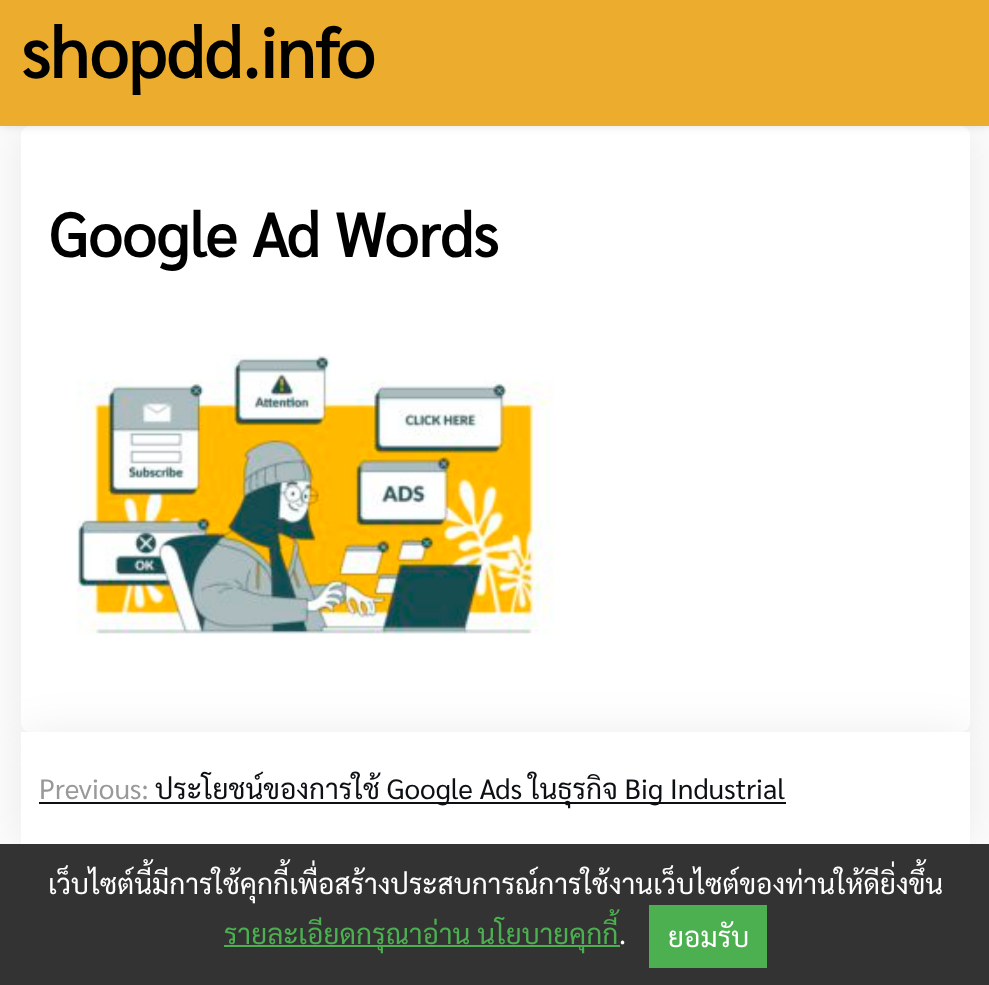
<!DOCTYPE html>
<meta charset="utf-8">
<style>body { margin: 0 } canvas { display: block }</style>
<canvas id="canvas" width="989" height="985"></canvas>
<img id="img1" src="img_01.png" hidden>
<script>
window.onload = function () {
	const canvas = document.getElementById("canvas");
	const ctx = canvas.getContext("2d");
	ctx.miterLimit = 4;
	ctx.fontKerning = "normal";
	function txt(s, x, y) {
		ctx.fillText(s, x, y);
	}
	function fill(x, y, w, h) {
		ctx.fillRect(x, y, w, h);
	}
	function round(x, y, w, h, r) {
		ctx.beginPath();
		ctx.roundRect(x, y, w, h, r);
		ctx.fill();
	}
	function img(id, x, y, w, h) {
		ctx.drawImage(document.getElementById(id), x, y, w, h);
	}

	ctx.fillStyle = "#FCFCFC";
	fill(0, 0, 989, 985);
	ctx.fillStyle = "rgba(0, 0, 0, 0.07)";
	ctx.filter = "blur(22px)";
	ctx.beginPath();
	ctx.roundRect(21, 126, 949, 606, 9);
	ctx.fill();
	ctx.filter = "none";
	ctx.fillStyle = "#FFFFFF";
	round(21, 126, 949, 606, 9);
	ctx.fillStyle = "rgba(0, 0, 0, 0.12)";
	ctx.filter = "blur(4.5px)";
	ctx.beginPath();
	ctx.rect(0, -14, 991, 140);
	ctx.fill();
	ctx.filter = "none";
	ctx.fillStyle = "#ECAC2E";
	fill(0, 0, 989, 126);
	img("img1", 76, 354, 478, 281);
	ctx.fillStyle = "rgba(0, 0, 0, 0.07)";
	ctx.filter = "blur(22px)";
	ctx.beginPath();
	ctx.roundRect(21, 732, 949, 113, 9);
	ctx.fill();
	ctx.filter = "none";
	ctx.fillStyle = "#FFFFFF";
	fill(21, 732, 949, 112);
	ctx.fillStyle = "#0D1013";
	fill(39, 802, 747, 2);
	ctx.fillStyle = "#333333";
	fill(0, 844, 989, 141);
	ctx.fillStyle = "#4CAF50";
	fill(224, 945, 396, 2);
	fill(649, 905, 118, 63);
	ctx.font = "bold 70px Sarabun";
	ctx.fillStyle = "#000000";
	txt("shopdd.info", 21, 78);
	ctx.font = "bold 61.25px Sarabun";
	txt("Google Ad Words", 49, 257);
	ctx.font = "28px Sarabun";
	ctx.fillStyle = "#999999";
	txt("Previous:", 39, 799);
	ctx.fillStyle = "#0D1013";
	txt("ประโยชน์ของการใช้ Google Ads ในธุรกิจ Big Industrial", 155, 799);
	ctx.fillStyle = "#FFFFFF";
	txt("เว็บไซต์นี้มีการใช้คุกกี้เพื่อสร้างประสบการณ์การใช้งานเว็บไซต์ของท่านให้ดียิ่งขึ้น", 48, 894);
	ctx.fillStyle = "#4CAF50";
	txt("รายละเอียดกรุณาอ่าน นโยบายคุกกี้", 224, 944);
	ctx.fillStyle = "#FFFFFF";
	txt(".", 619, 944);
	txt("ยอมรับ", 668, 947);
};
</script>
